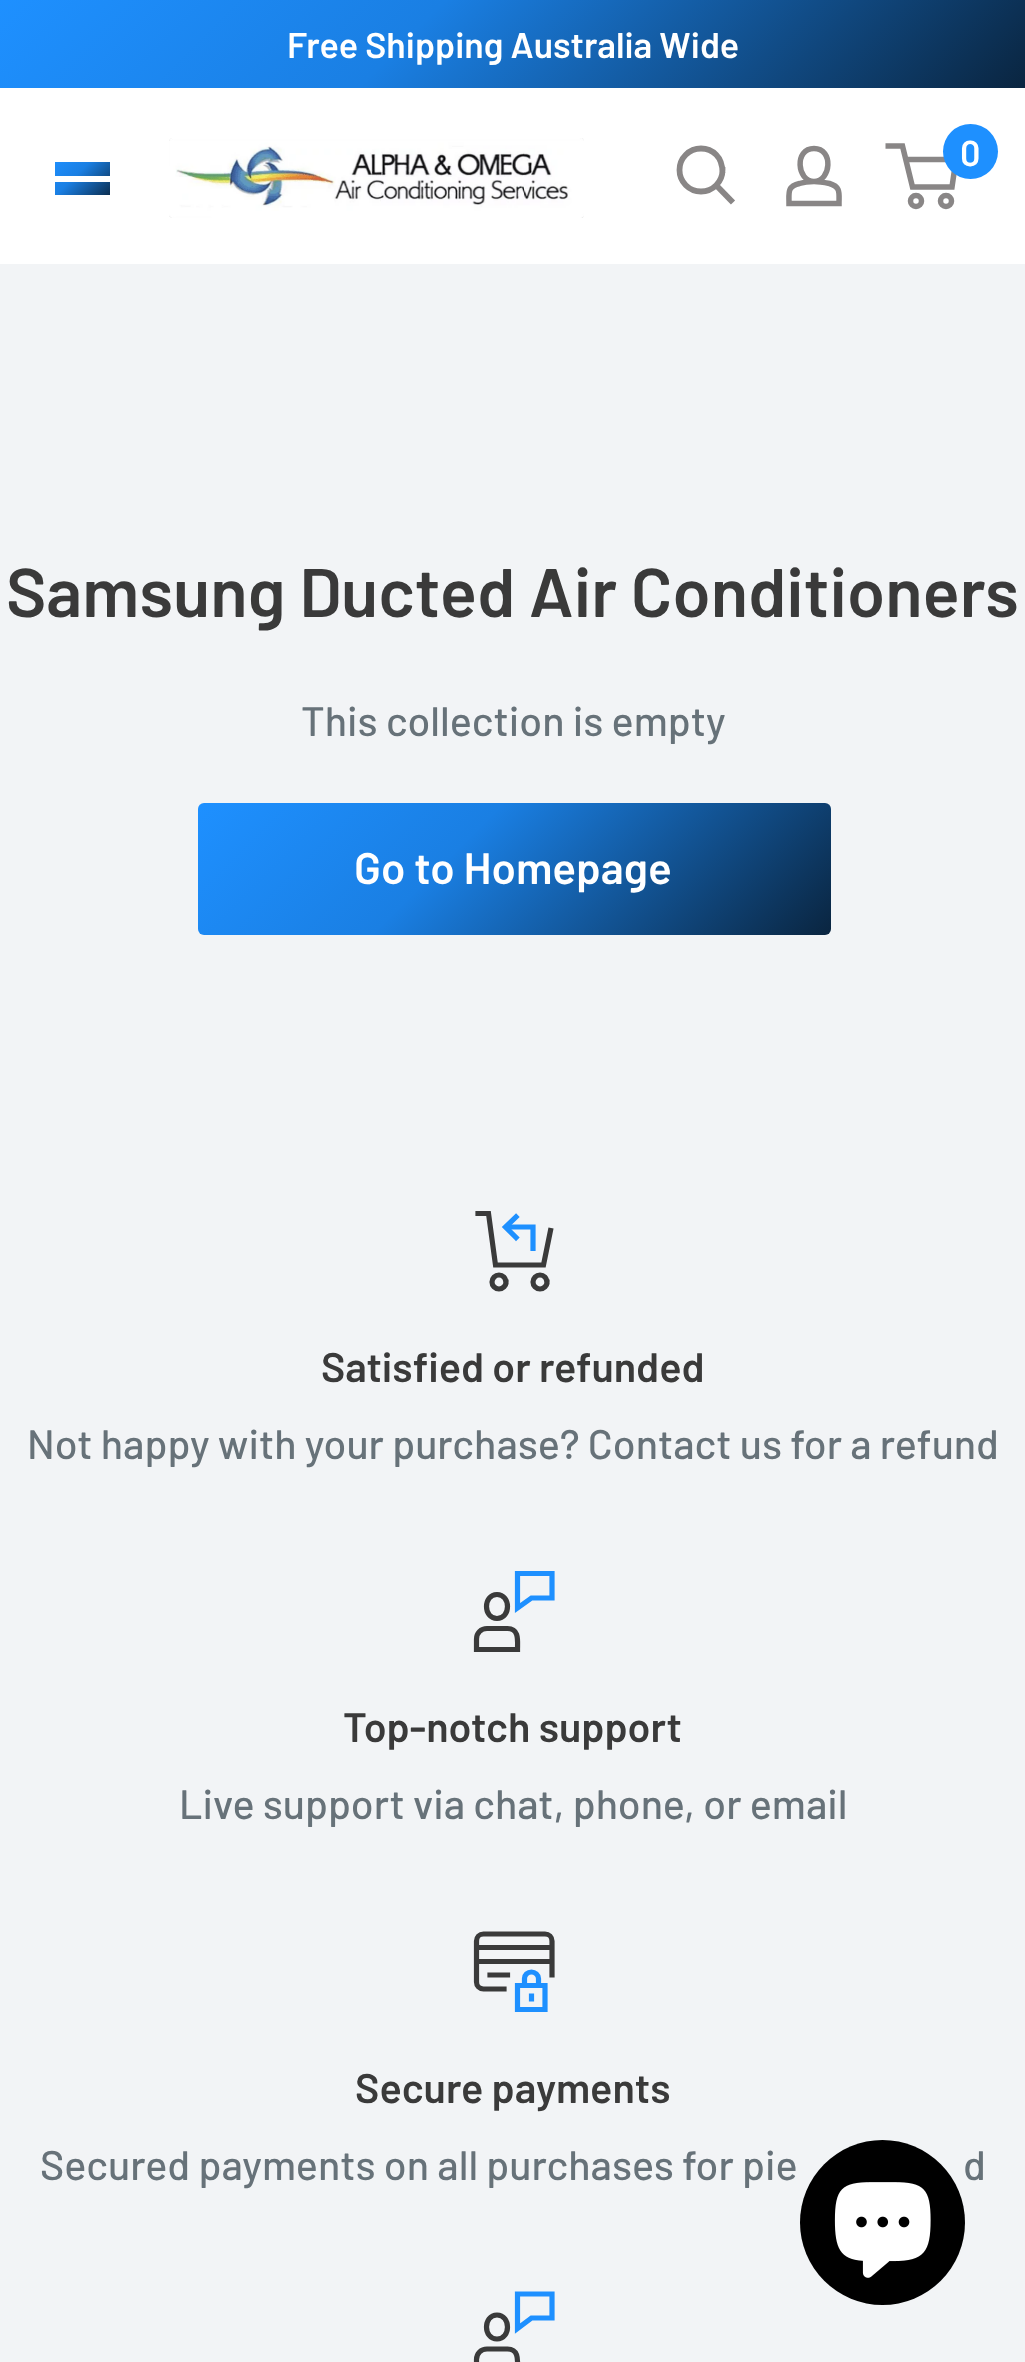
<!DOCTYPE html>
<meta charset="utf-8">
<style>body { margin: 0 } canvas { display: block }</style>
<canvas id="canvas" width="1025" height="2362"></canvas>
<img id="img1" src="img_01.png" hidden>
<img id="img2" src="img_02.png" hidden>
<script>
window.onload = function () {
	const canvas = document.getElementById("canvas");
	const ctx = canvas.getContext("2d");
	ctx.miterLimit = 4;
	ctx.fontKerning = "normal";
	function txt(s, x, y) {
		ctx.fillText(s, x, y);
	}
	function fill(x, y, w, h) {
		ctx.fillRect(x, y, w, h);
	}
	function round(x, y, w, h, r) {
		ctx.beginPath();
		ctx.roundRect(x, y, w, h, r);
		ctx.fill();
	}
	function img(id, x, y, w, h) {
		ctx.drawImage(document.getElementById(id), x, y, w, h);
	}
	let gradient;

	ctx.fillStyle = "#F2F4F6";
	fill(0, 0, 1025, 2362);
	gradient = ctx.createLinearGradient(234, -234, 791, 322);
	gradient.addColorStop(0, "#1E90FF");
	gradient.addColorStop(0.4, "#1A7FE3");
	gradient.addColorStop(1, "#0A2540");
	ctx.fillStyle = gradient;
	fill(0, 0, 1025, 88);
	ctx.fillStyle = "#FFFFFF";
	fill(0, 88, 1025, 176);
	img("img1", 169, 138, 415, 80);
	ctx.beginPath();
	ctx.moveTo(731, 200.5);
	ctx.lineTo(717, 186);
	ctx.strokeStyle = "#898686";
	ctx.lineWidth = 5.8;
	ctx.lineCap = "square";
	ctx.stroke();
	ctx.beginPath();
	ctx.arc(701, 170, 21.5, 0, Math.PI * 2);
	ctx.stroke();
	ctx.beginPath();
	ctx.moveTo(814, 181.5);
	ctx.bezierCurveTo(819, 181.5, 824.5, 182.5, 829.5, 183.5);
	ctx.bezierCurveTo(841, 187, 839, 193, 839, 203.5);
	ctx.lineTo(789, 203.5);
	ctx.bezierCurveTo(789, 192.5, 787, 186.5, 799.5, 183.5);
	ctx.bezierCurveTo(804, 182, 809, 181.5, 814, 181.5);
	ctx.closePath();
	ctx.moveTo(814, 181.5);
	ctx.bezierCurveTo(797, 181.5, 794, 148.5, 814, 148.5);
	ctx.bezierCurveTo(834, 148.5, 831, 181.5, 814, 181.5);
	ctx.closePath();
	ctx.lineWidth = 5.5;
	ctx.lineCap = "butt";
	ctx.stroke();
	ctx.beginPath();
	ctx.arc(916, 201, 5.5, 0, Math.PI * 2);
	ctx.stroke();
	ctx.beginPath();
	ctx.arc(946, 201, 5.5, 0, Math.PI * 2);
	ctx.stroke();
	ctx.beginPath();
	ctx.moveTo(905.5, 159.5);
	ctx.lineTo(956, 159.5);
	ctx.lineTo(952, 187);
	ctx.lineTo(912.5, 187);
	ctx.lineTo(902.5, 146);
	ctx.lineTo(885.5, 146);
	ctx.stroke();
	ctx.fillStyle = "#1E90FF";
	ctx.beginPath();
	ctx.arc(970.5, 151.5, 27.5, 0, Math.PI * 2);
	ctx.fill();
	gradient = ctx.createLinearGradient(58, 154, 107, 204);
	gradient.addColorStop(0, "#1E90FF");
	gradient.addColorStop(0.4, "#1A7FE3");
	gradient.addColorStop(1, "#0A2540");
	ctx.fillStyle = gradient;
	fill(55, 162, 55, 33);
	ctx.fillStyle = "#FFFFFF";
	ctx.beginPath();
	ctx.moveTo(55, 195);
	ctx.lineTo(110, 195);
	ctx.lineTo(110, 201);
	ctx.lineTo(55, 201);
	ctx.closePath();
	ctx.moveTo(55, 157);
	ctx.lineTo(110, 157);
	ctx.lineTo(110, 162);
	ctx.lineTo(55, 162);
	ctx.closePath();
	ctx.moveTo(55, 176);
	ctx.lineTo(110, 176);
	ctx.lineTo(110, 182);
	ctx.lineTo(55, 182);
	ctx.closePath();
	ctx.fill("evenodd");
	gradient = ctx.createLinearGradient(323, 678, 705, 1060);
	gradient.addColorStop(0, "#1E90FF");
	gradient.addColorStop(0.4, "#1A7FE3");
	gradient.addColorStop(1, "#0A2540");
	ctx.fillStyle = gradient;
	round(198, 803, 633, 132, 6);
	ctx.beginPath();
	ctx.moveTo(505.5, 1227);
	ctx.lineTo(533, 1227);
	ctx.lineTo(533, 1251);
	ctx.strokeStyle = "#1E90FF";
	ctx.lineWidth = 5.2;
	ctx.stroke();
	ctx.beginPath();
	ctx.moveTo(516, 1237.5);
	ctx.lineTo(505.5, 1227);
	ctx.lineTo(516, 1217);
	ctx.lineCap = "square";
	ctx.stroke();
	ctx.beginPath();
	ctx.moveTo(550.5, 1230.5);
	ctx.lineTo(543.5, 1265);
	ctx.lineTo(495.5, 1265);
	ctx.lineTo(488.5, 1213.5);
	ctx.lineTo(478, 1213.5);
	ctx.strokeStyle = "#3A3A3A";
	ctx.stroke();
	ctx.beginPath();
	ctx.arc(499, 1282, 7, 0, Math.PI * 2);
	ctx.stroke();
	ctx.beginPath();
	ctx.arc(540, 1282, 7, 0, Math.PI * 2);
	ctx.stroke();
	ctx.beginPath();
	ctx.moveTo(507.5, 1628.5);
	ctx.lineTo(487, 1628.5);
	ctx.bezierCurveTo(481, 1628.5, 476.5, 1633, 476.5, 1639);
	ctx.lineTo(476.5, 1649.5);
	ctx.lineTo(517.5, 1649.5);
	ctx.bezierCurveTo(517.5, 1641, 519.5, 1628.5, 507.5, 1628.5);
	ctx.closePath();
	ctx.moveTo(497, 1618.5);
	ctx.bezierCurveTo(483, 1618.5, 483, 1594.5, 497, 1594.5);
	ctx.bezierCurveTo(511, 1594.5, 511, 1618.5, 497, 1618.5);
	ctx.closePath();
	ctx.stroke();
	ctx.beginPath();
	ctx.moveTo(517.5, 1573.5);
	ctx.lineTo(517.5, 1608);
	ctx.lineTo(531.5, 1598);
	ctx.lineTo(552, 1598);
	ctx.lineTo(552, 1573.5);
	ctx.closePath();
	ctx.strokeStyle = "#1E90FF";
	ctx.stroke();
	ctx.beginPath();
	ctx.moveTo(476.5, 1947.5);
	ctx.lineTo(552, 1947.5);
	ctx.moveTo(476.5, 1961.5);
	ctx.lineTo(552, 1961.5);
	ctx.moveTo(504, 1989);
	ctx.lineTo(483.5, 1989);
	ctx.bezierCurveTo(479.5, 1989, 476.5, 1986, 476.5, 1982);
	ctx.lineTo(476.5, 1941);
	ctx.bezierCurveTo(476.5, 1937, 479.5, 1934, 483.5, 1934);
	ctx.lineTo(545, 1934);
	ctx.bezierCurveTo(549, 1934, 552, 1937, 552, 1941);
	ctx.lineTo(552, 1975);
	ctx.moveTo(490, 1975);
	ctx.lineTo(507.5, 1975);
	ctx.strokeStyle = "#3A3A3A";
	ctx.stroke();
	ctx.beginPath();
	ctx.moveTo(517.5, 1985.5);
	ctx.lineTo(545, 1985.5);
	ctx.lineTo(545, 2009.5);
	ctx.lineTo(517.5, 2009.5);
	ctx.closePath();
	ctx.moveTo(524.5, 1985.5);
	ctx.lineTo(524.5, 1978.5);
	ctx.bezierCurveTo(524.5, 1975, 527.5, 1972, 531.5, 1972);
	ctx.bezierCurveTo(535, 1972, 538.5, 1975, 538.5, 1978.5);
	ctx.lineTo(538.5, 1985.5);
	ctx.moveTo(531.5, 1996);
	ctx.lineTo(531.5, 1999);
	ctx.strokeStyle = "#1E90FF";
	ctx.stroke();
	ctx.beginPath();
	ctx.moveTo(507.5, 2349);
	ctx.lineTo(487, 2349);
	ctx.bezierCurveTo(481, 2349, 476.5, 2353.5, 476.5, 2359.5);
	ctx.lineTo(476.5, 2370);
	ctx.lineTo(517.5, 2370);
	ctx.bezierCurveTo(517.5, 2361.5, 519.5, 2349, 507.5, 2349);
	ctx.closePath();
	ctx.moveTo(497, 2339);
	ctx.bezierCurveTo(483, 2339, 483, 2315, 497, 2315);
	ctx.bezierCurveTo(511, 2315, 511, 2339, 497, 2339);
	ctx.closePath();
	ctx.strokeStyle = "#3A3A3A";
	ctx.stroke();
	ctx.beginPath();
	ctx.moveTo(517.5, 2294);
	ctx.lineTo(517.5, 2328.5);
	ctx.lineTo(531.5, 2318);
	ctx.lineTo(552, 2318);
	ctx.lineTo(552, 2294);
	ctx.closePath();
	ctx.strokeStyle = "#1E90FF";
	ctx.stroke();
	ctx.font = "600 35.75px Barlow";
	ctx.fillStyle = "#FFFFFF";
	txt("Free Shipping Australia Wide", 287, 58);
	ctx.font = "600 36px Barlow";
	txt("0", 960, 166);
	ctx.font = "600 68.75px Barlow";
	ctx.fillStyle = "#3A3A3A";
	txt("Samsung Ducted Air Conditioners", 6, 617);
	ctx.font = "500 41.25px Barlow";
	ctx.fillStyle = "#677279";
	txt("This collection is empty", 301, 736);
	ctx.font = "600 44px Barlow";
	ctx.fillStyle = "#FFFFFF";
	txt("Go to Homepage", 354, 884);
	ctx.font = "600 41.25px Barlow";
	ctx.fillStyle = "#3A3A3A";
	txt("Satisfied or refunded", 321, 1382);
	ctx.font = "500 41.25px Barlow";
	ctx.fillStyle = "#677279";
	txt("Not happy with your purchase? Contact us for a refund", 27, 1459);
	ctx.font = "600 41.25px Barlow";
	ctx.fillStyle = "#3A3A3A";
	txt("Top-notch support", 343, 1742);
	ctx.font = "500 41.25px Barlow";
	ctx.fillStyle = "#677279";
	txt("Live support via chat, phone, or email", 179, 1819);
	ctx.font = "600 41.25px Barlow";
	ctx.fillStyle = "#3A3A3A";
	txt("Secure payments", 355, 2103);
	ctx.font = "500 41.25px Barlow";
	ctx.fillStyle = "#677279";
	txt("Secured payments on all purchases for pie", 40, 2180);
	txt("d", 963, 2180);
	ctx.fillStyle = "#000000";
	ctx.beginPath();
	ctx.arc(882.5, 2222.5, 82.5, 0, Math.PI * 2);
	ctx.fill();
	img("img2", 834, 2182, 97, 96);
};
</script>
